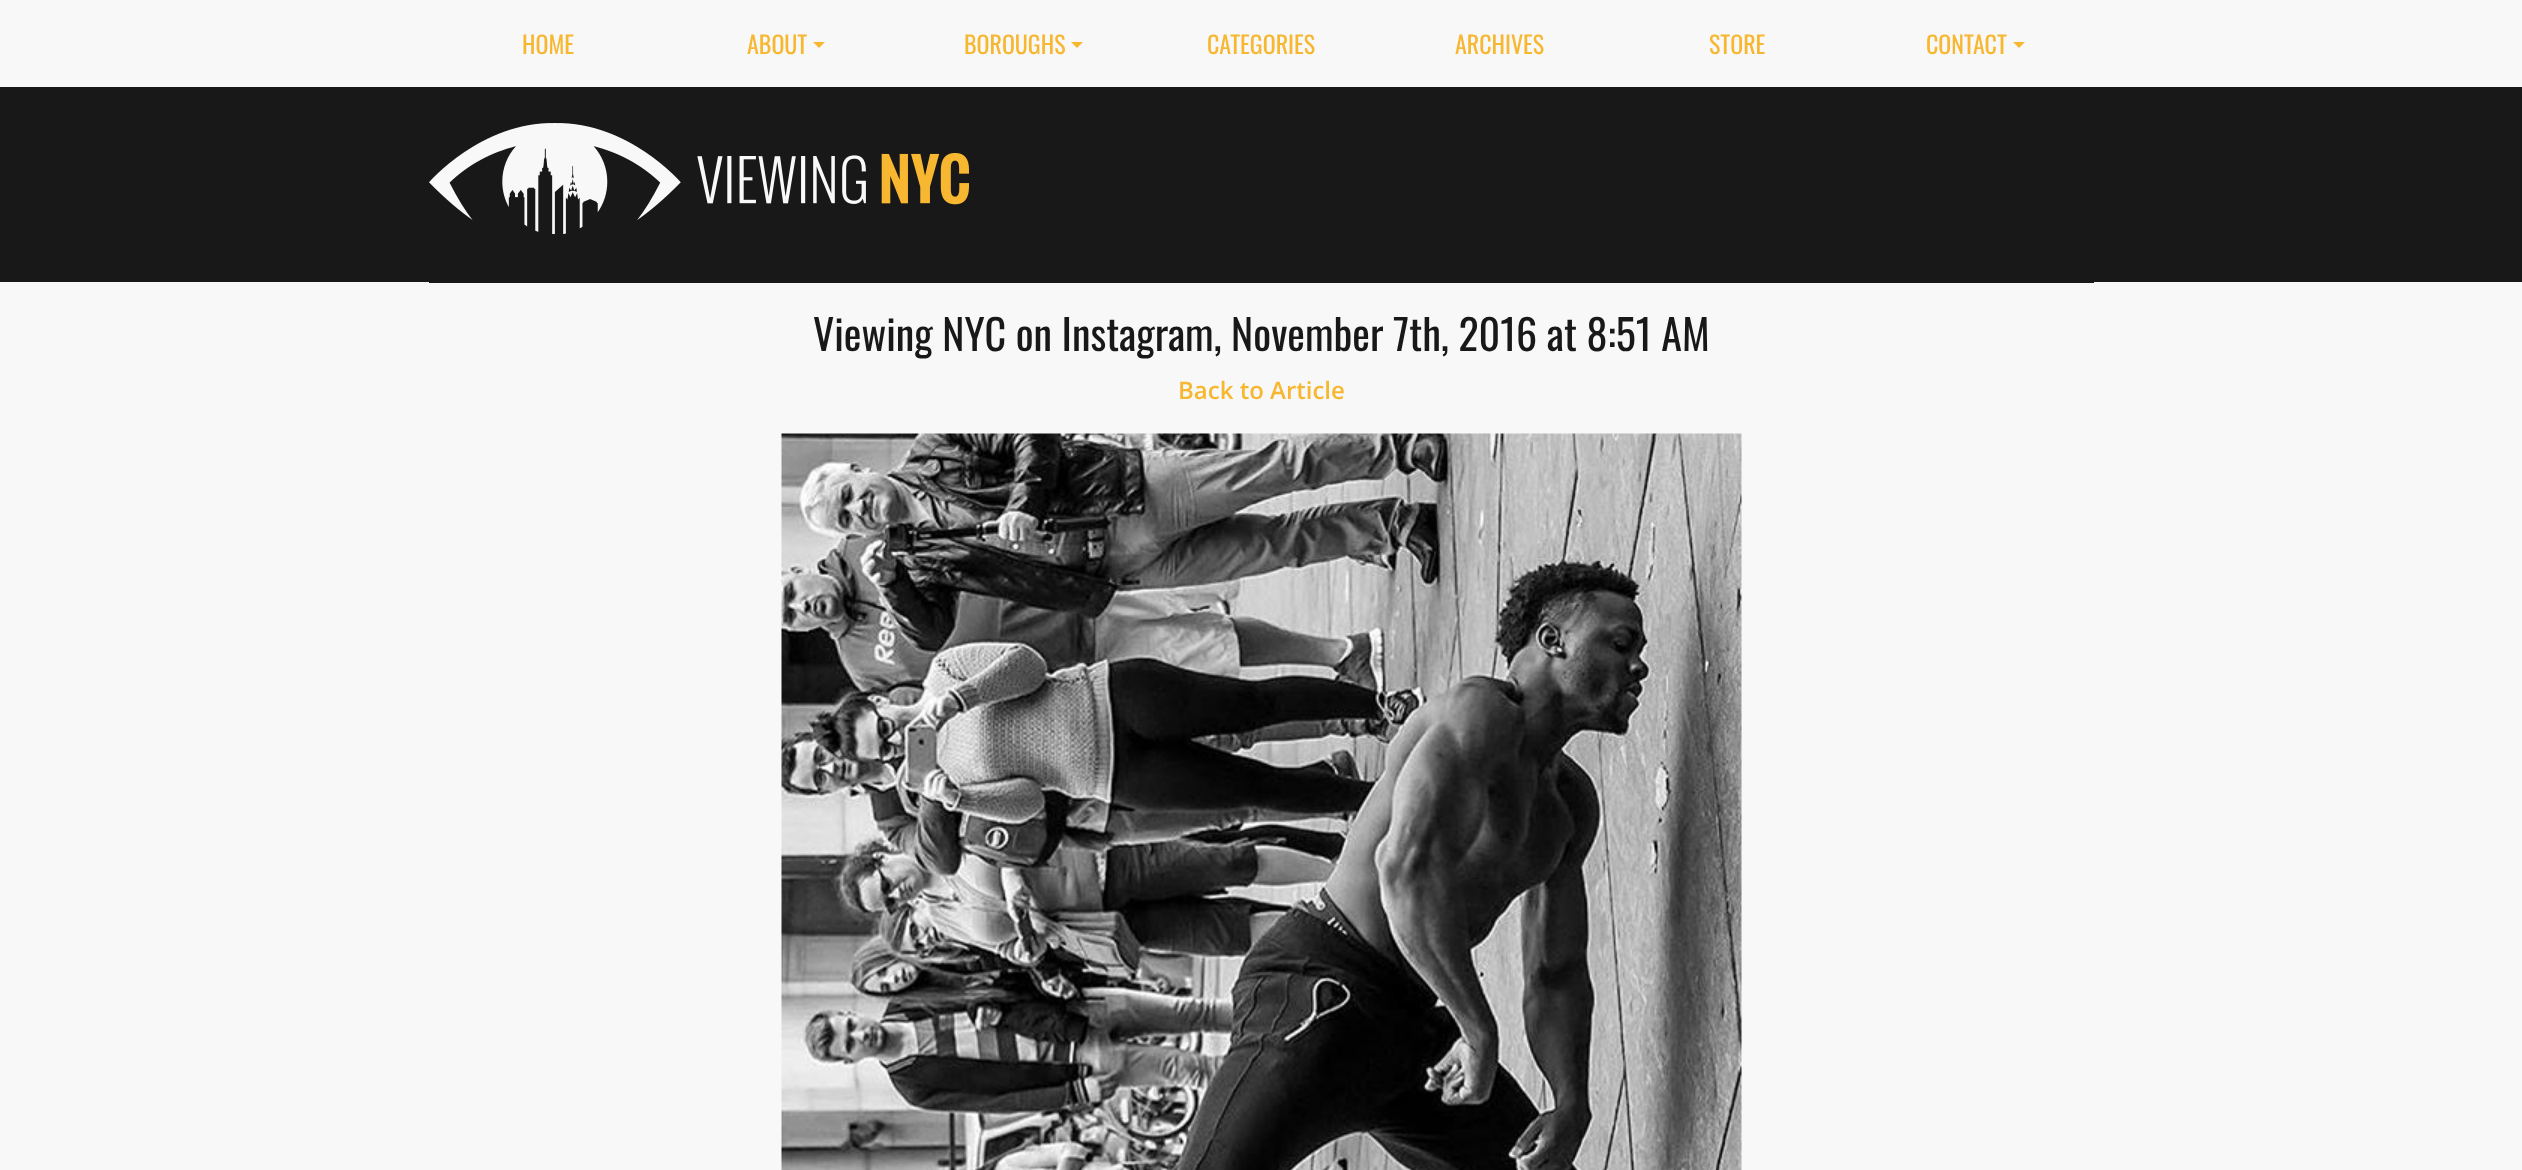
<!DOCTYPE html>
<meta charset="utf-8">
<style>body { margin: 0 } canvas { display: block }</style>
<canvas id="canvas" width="2522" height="1170"></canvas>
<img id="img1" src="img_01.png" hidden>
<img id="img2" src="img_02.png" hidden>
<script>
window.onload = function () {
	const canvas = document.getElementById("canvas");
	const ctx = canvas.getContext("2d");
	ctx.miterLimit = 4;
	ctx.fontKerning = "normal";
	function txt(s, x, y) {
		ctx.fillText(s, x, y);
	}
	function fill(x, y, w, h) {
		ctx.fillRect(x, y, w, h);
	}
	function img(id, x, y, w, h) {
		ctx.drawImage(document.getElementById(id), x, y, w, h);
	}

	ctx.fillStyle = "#F8F8F8";
	fill(0, 0, 2522, 1170);
	ctx.fillStyle = "#F7B731";
	ctx.beginPath();
	ctx.moveTo(813, 42);
	ctx.lineTo(825, 42);
	ctx.lineTo(819, 48);
	ctx.closePath();
	ctx.fill();
	ctx.beginPath();
	ctx.moveTo(1071, 42);
	ctx.lineTo(1083, 42);
	ctx.lineTo(1077, 48);
	ctx.closePath();
	ctx.fill();
	ctx.beginPath();
	ctx.moveTo(2013, 42);
	ctx.lineTo(2025, 42);
	ctx.lineTo(2019, 48);
	ctx.closePath();
	ctx.fill();
	ctx.fillStyle = "#181818";
	fill(0, 87, 2522, 195);
	fill(429, 282, 1665, 1);
	img("img1", 429, 123, 540, 111);
	img("img2", 781, 433, 961, 737);
	ctx.font = "24px Oswald";
	ctx.fillStyle = "#F7B731";
	txt("HOME", 522, 54);
	txt("ABOUT", 747, 54);
	txt("BOROUGHS", 964, 54);
	txt("CATEGORIES", 1207, 54);
	txt("ARCHIVES", 1455, 54);
	txt("STORE", 1709, 54);
	txt("CONTACT", 1926, 54);
	ctx.font = "42px Oswald";
	ctx.fillStyle = "#181818";
	txt("Viewing NYC on Instagram, November 7th, 2016 at 8:51 AM", 813, 351);
	ctx.font = "600 24px Open Sans";
	ctx.fillStyle = "#F7B731";
	txt("Back to Article", 1178, 399);
};
</script>
